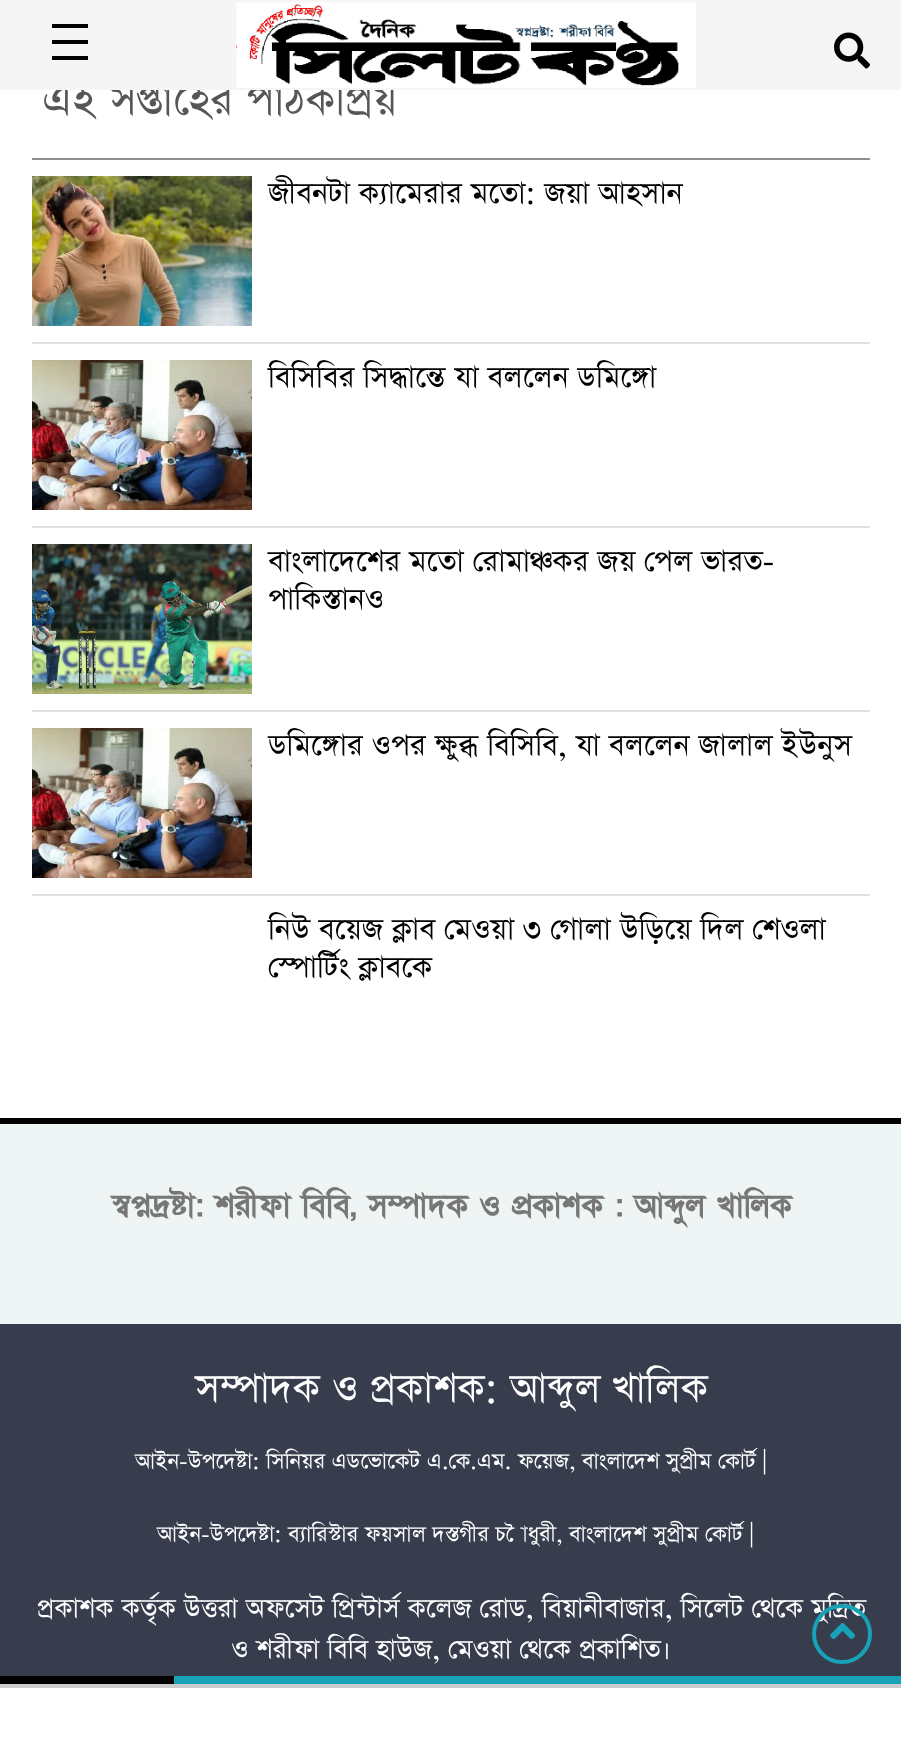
<!DOCTYPE html>
<meta charset="utf-8">
<style>body { margin: 0 } canvas { display: block }</style>
<canvas id="canvas" width="901" height="1743"></canvas>
<img id="img1" src="img_04.png" hidden>
<img id="img2" src="img_05.png" hidden>
<img id="img3" src="img_06.png" hidden>
<img id="img4" src="img_02.png" hidden>
<img id="img5" src="img_01.png" hidden>
<img id="img6" src="img_03.png" hidden>
<script>
window.onload = function () {
	const canvas = document.getElementById("canvas");
	const ctx = canvas.getContext("2d");
	ctx.miterLimit = 4;
	ctx.fontKerning = "normal";
	function txt(s, x, y) {
		ctx.fillText(s, x, y);
	}
	function fill(x, y, w, h) {
		ctx.fillRect(x, y, w, h);
	}
	function img(id, x, y, w, h) {
		ctx.drawImage(document.getElementById(id), x, y, w, h);
	}

	ctx.fillStyle = "#FFFFFF";
	fill(0, 0, 901, 1743);
	ctx.fillStyle = "#8F8F8F";
	fill(32, 158, 838, 2);
	ctx.fillStyle = "#E0E0E0";
	fill(32, 342, 838, 2);
	img("img1", 32, 176, 220, 150);
	fill(32, 526, 838, 2);
	img("img2", 32, 360, 220, 150);
	fill(32, 710, 838, 2);
	img("img3", 32, 544, 220, 150);
	fill(32, 894, 838, 2);
	img("img2", 32, 728, 220, 150);
	ctx.fillStyle = "#EFF5F4";
	fill(0, 1124, 901, 200);
	ctx.fillStyle = "#000000";
	fill(0, 1118, 901, 6);
	ctx.fillStyle = "#373D4D";
	fill(0, 1324, 901, 352);
	ctx.fillStyle = "#17A2B8";
	fill(174, 1676, 727, 8);
	ctx.fillStyle = "#000000";
	fill(0, 1676, 174, 8);
	ctx.fillStyle = "#CCCCCC";
	fill(0, 1684, 901, 4);
	ctx.font = "52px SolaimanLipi";
	ctx.fillStyle = "#565656";
	txt("এই সপ্তাহের পাঠকপ্রিয়", 42, 116);
	ctx.fillStyle = "#F5F5F5";
	fill(0, 0, 901, 90);
	img("img4", 834, 32, 36, 37);
	img("img5", 236, 2, 460, 86);
	ctx.fillStyle = "#000000";
	fill(52, 56, 36, 4);
	fill(52, 40, 36, 4);
	fill(52, 24, 36, 4);
	ctx.font = "35.6px SolaimanLipi";
	txt("জীবনটা ক্যামেরার মতো: জয়া আহসান", 268, 204);
	txt("বিসিবির সিদ্ধান্তে যা বললেন ডমিঙ্গো", 268, 388);
	txt("বাংলাদেশের মতো রোমাঞ্চকর জয় পেল ভারত-", 268, 572);
	txt("পাকিস্তানও", 268, 610);
	txt("ডমিঙ্গোর ওপর ক্ষুব্ধ বিসিবি, যা বললেন জালাল ইউনুস", 268, 756);
	txt("নিউ বয়েজ ক্লাব মেওয়া ৩ গোলা উড়িয়ে দিল শেওলা", 268, 940);
	txt("স্পোর্টিং ক্লাবকে", 268, 978);
	ctx.font = "bold 31.7px SolaimanLipi";
	ctx.fillStyle = "#777777";
	txt("স্বপ্নদ্রষ্টা: শরীফা বিবি, সম্পাদক ও প্রকাশক : আব্দুল খালিক", 112, 1216);
	ctx.font = "48px SolaimanLipi";
	ctx.fillStyle = "#FFFFFF";
	txt("সম্পাদক ও প্রকাশক: আব্দুল খালিক", 195, 1403);
	ctx.font = "26px SolaimanLipi";
	txt("আইন-উপদেষ্টা: সিনিয়র এডভোকেট এ.কে.এম. ফয়েজ, বাংলাদেশ সুপ্রীম কোর্ট |", 135, 1469);
	txt("আইন-উপদেষ্টা: ব্যারিস্টার ফয়সাল দস্তগীর চৌধুরী, বাংলাদেশ সুপ্রীম কোর্ট |", 157, 1542);
	ctx.font = "32px SolaimanLipi";
	txt("প্রকাশক কর্তৃক উত্তরা অফসেট প্রিন্টার্স কলেজ রোড, বিয়ানীবাজার, সিলেট থেকে মুদ্রিত", 37, 1618);
	ctx.beginPath();
	ctx.arc(842, 1634, 28, 0, Math.PI * 2);
	ctx.strokeStyle = "#17A2B8";
	ctx.lineWidth = 4;
	ctx.stroke();
	img("img6", 830, 1623, 25, 16);
	txt("ও শরীফা বিবি হাউজ, মেওয়া থেকে প্রকাশিত।", 231, 1659);
};
</script>
